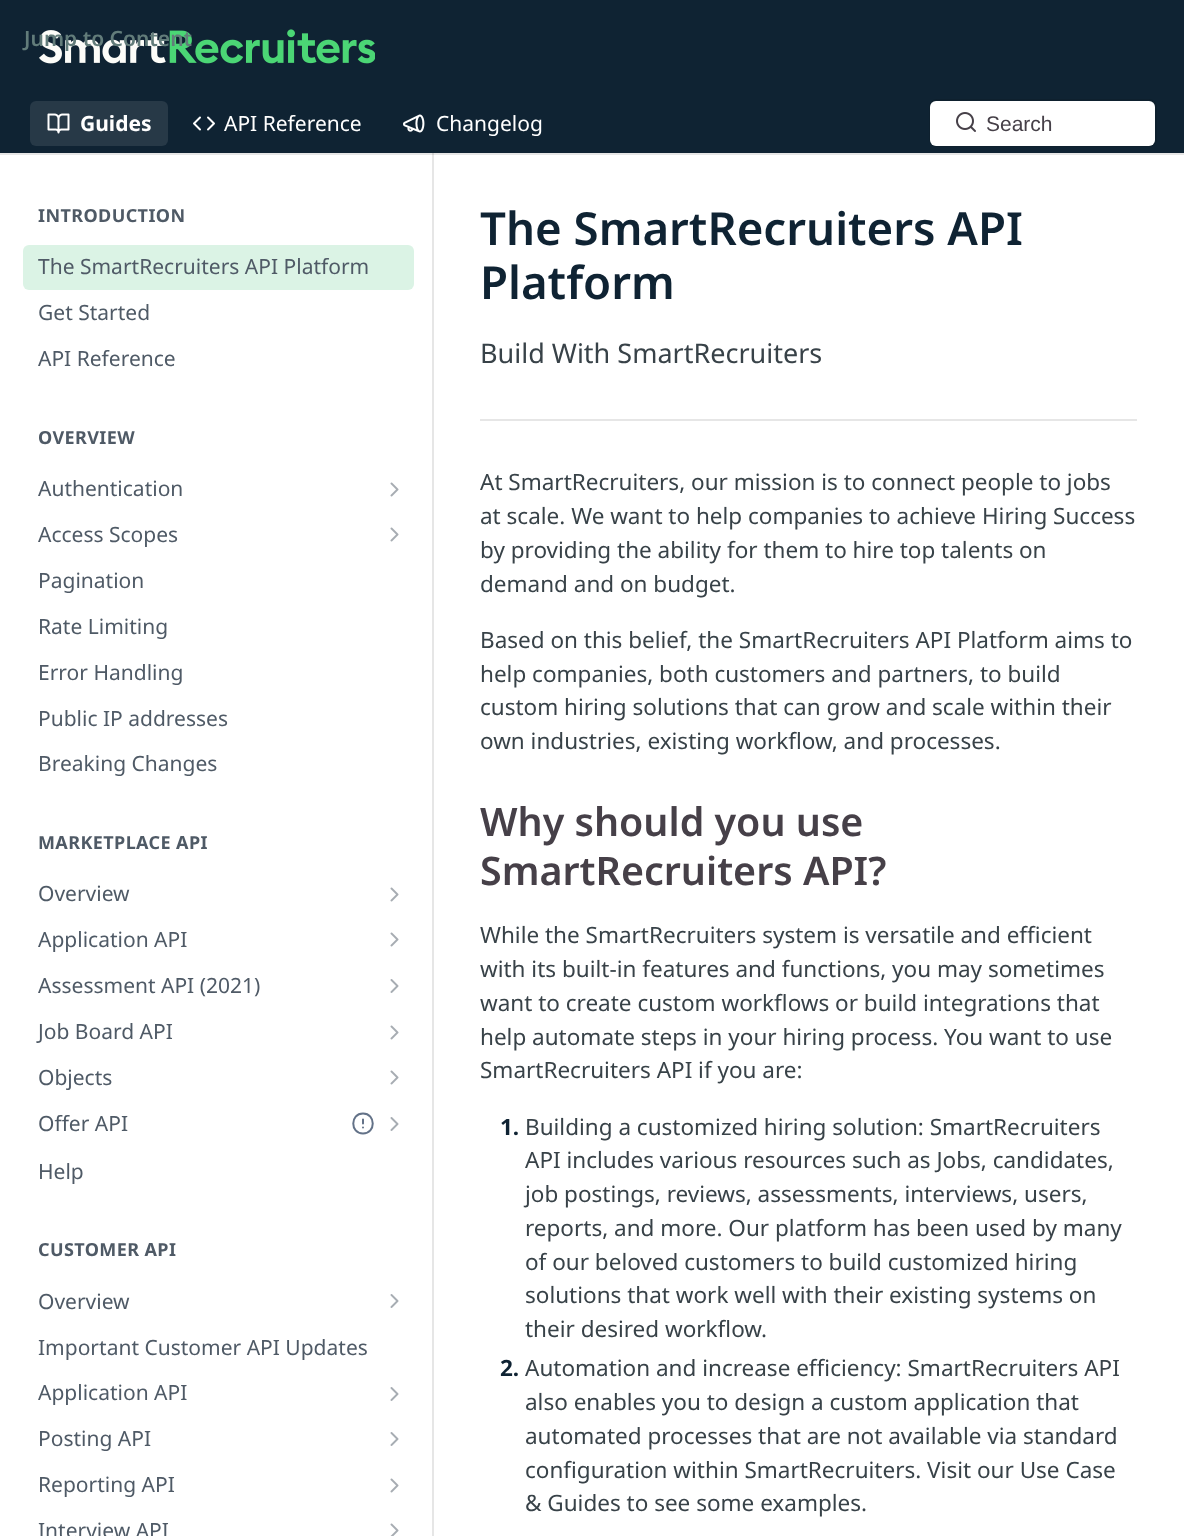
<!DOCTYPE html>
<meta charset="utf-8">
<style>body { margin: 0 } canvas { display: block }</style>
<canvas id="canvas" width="1184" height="1536"></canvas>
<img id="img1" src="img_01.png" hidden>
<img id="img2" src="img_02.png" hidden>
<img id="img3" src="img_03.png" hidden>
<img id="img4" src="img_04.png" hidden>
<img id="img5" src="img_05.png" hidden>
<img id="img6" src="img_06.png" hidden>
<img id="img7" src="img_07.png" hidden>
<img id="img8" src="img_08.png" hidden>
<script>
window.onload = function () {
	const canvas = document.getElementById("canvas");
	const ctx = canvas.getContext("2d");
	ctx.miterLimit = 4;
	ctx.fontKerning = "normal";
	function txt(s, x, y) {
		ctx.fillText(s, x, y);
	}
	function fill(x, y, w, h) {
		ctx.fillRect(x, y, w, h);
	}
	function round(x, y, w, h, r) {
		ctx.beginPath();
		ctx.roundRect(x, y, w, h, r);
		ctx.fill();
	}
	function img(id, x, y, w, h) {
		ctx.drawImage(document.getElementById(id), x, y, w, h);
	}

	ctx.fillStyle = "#FFFFFF";
	fill(0, 0, 1184, 1536);
	ctx.fillStyle = "#E6E6E6";
	fill(0, 153, 1184, 2);
	ctx.fillStyle = "#0F2333";
	fill(0, 0, 1184, 153);
	img("img1", 39, 29, 336, 35);
	ctx.fillStyle = "#273947";
	round(30, 101, 138, 45, 6);
	img("img2", 47, 113, 23, 21);
	img("img3", 193, 116, 22, 15);
	img("img4", 403, 114, 22, 19);
	ctx.beginPath();
	ctx.roundRect(930, 100, 226, 46, 7);
	ctx.strokeStyle = "#0E202E";
	ctx.lineWidth = 2;
	ctx.stroke();
	ctx.fillStyle = "#FFFFFF";
	round(930, 101, 225, 45, 6);
	img("img5", 956, 112, 20, 20);
	ctx.fillStyle = "#E6E6E6";
	fill(432, 153, 2, 1383);
	ctx.fillStyle = "#CFCFCF";
	fill(432, 153, 2, 2);
	ctx.fillStyle = "#DBF3E5";
	round(23, 245, 391, 45, 6);
	img("img6", 390, 482, 9, 15);
	img("img6", 390, 527, 9, 15);
	img("img6", 390, 887, 9, 15);
	img("img6", 390, 932, 9, 15);
	img("img7", 390, 979, 9, 14);
	img("img6", 390, 1025, 9, 15);
	img("img6", 390, 1070, 9, 15);
	ctx.beginPath();
	ctx.moveTo(363, 1133.5);
	ctx.bezierCurveTo(376, 1133.5, 376, 1113.5, 363, 1113.5);
	ctx.bezierCurveTo(350, 1113.5, 350, 1133.5, 363, 1133.5);
	ctx.closePath();
	ctx.moveTo(363, 1119.5);
	ctx.lineTo(363, 1123.5);
	ctx.moveTo(363, 1127.5);
	ctx.lineTo(363, 1127.5);
	ctx.strokeStyle = "#637288";
	ctx.lineCap = "round";
	ctx.lineJoin = "round";
	ctx.stroke();
	img("img7", 390, 1117, 9, 14);
	img("img7", 390, 1294, 9, 14);
	img("img7", 390, 1387, 9, 14);
	img("img7", 390, 1432, 9, 14);
	img("img6", 390, 1478, 9, 15);
	img("img8", 390, 1523, 9, 13);
	ctx.fillStyle = "#E6E6E6";
	fill(480, 419, 657, 2);
	ctx.font = "600 21px Noto Sans";
	ctx.fillStyle = "#627C7A";
	txt("Jump to Content", 24, 46);
	ctx.font = "bold 21px Noto Sans";
	ctx.fillStyle = "#FFFFFF";
	txt("Guides", 80, 131);
	ctx.font = "21px Noto Sans";
	txt("API Reference", 224, 131);
	txt("Changelog", 436, 131);
	ctx.font = "21px Liberation Sans";
	ctx.fillStyle = "#464048";
	txt("Search", 986, 131);
	ctx.letterSpacing = "0.4px";
	ctx.font = "bold 18px Noto Sans";
	ctx.fillStyle = "#4F5A66";
	txt("INTRODUCTION", 38, 222);
	ctx.letterSpacing = "0px";
	ctx.font = "21px Noto Sans";
	txt("The SmartRecruiters API Platform", 38, 274);
	txt("Get Started", 38, 320);
	txt("API Reference", 38, 366);
	ctx.letterSpacing = "0.4px";
	ctx.font = "bold 18px Noto Sans";
	txt("OVERVIEW", 38, 444);
	ctx.letterSpacing = "0px";
	ctx.font = "21px Noto Sans";
	txt("Authentication", 38, 496);
	txt("Access Scopes", 38, 542);
	txt("Pagination", 38, 588);
	txt("Rate Limiting", 38, 634);
	txt("Error Handling", 38, 680);
	txt("Public IP addresses", 38, 726);
	txt("Breaking Changes", 38, 771);
	ctx.letterSpacing = "0.4px";
	ctx.font = "bold 18px Noto Sans";
	txt("MARKETPLACE API", 38, 849);
	ctx.letterSpacing = "0px";
	ctx.font = "21px Noto Sans";
	txt("Overview", 38, 901);
	txt("Application API", 38, 947);
	txt("Assessment API (2021)", 38, 993);
	txt("Job Board API", 38, 1039);
	txt("Objects", 38, 1085);
	txt("Offer API", 38, 1131);
	txt("Help", 38, 1179);
	ctx.letterSpacing = "0.4px";
	ctx.font = "bold 18px Noto Sans";
	txt("CUSTOMER API", 38, 1256);
	ctx.letterSpacing = "0px";
	ctx.font = "21px Noto Sans";
	txt("Overview", 38, 1309);
	txt("Important Customer API Updates", 38, 1355);
	txt("Application API", 38, 1400);
	txt("Posting API", 38, 1446);
	txt("Reporting API", 38, 1492);
	txt("Interview API", 38, 1538);
	ctx.font = "600 45.6px Noto Sans";
	ctx.fillStyle = "#0F2333";
	txt("The SmartRecruiters API", 480, 245);
	txt("Platform", 480, 299);
	ctx.font = "27px Noto Sans";
	ctx.fillStyle = "#384248";
	txt("Build With SmartRecruiters", 480, 363);
	ctx.font = "22.5px Noto Sans";
	txt("At SmartRecruiters, our mission is to connect people to jobs", 480, 490);
	txt("at scale. We want to help companies to achieve Hiring Success", 480, 524);
	txt("by providing the ability for them to hire top talents on", 480, 558);
	txt("demand and on budget.", 480, 592);
	txt("Based on this belief, the SmartRecruiters API Platform aims to", 480, 648);
	txt("help companies, both customers and partners, to build", 480, 682);
	txt("custom hiring solutions that can grow and scale within their", 480, 715);
	txt("own industries, existing workflow, and processes.", 480, 749);
	ctx.font = "600 39.4px Noto Sans";
	ctx.fillStyle = "#464048";
	txt("Why should you use", 480, 836);
	txt("SmartRecruiters API?", 480, 885);
	ctx.font = "22.5px Noto Sans";
	ctx.fillStyle = "#384248";
	txt("While the SmartRecruiters system is versatile and efficient", 480, 943);
	txt("with its built-in features and functions, you may sometimes", 480, 977);
	txt("want to create custom workflows or build integrations that", 480, 1011);
	txt("help automate steps in your hiring process. You want to use", 480, 1045);
	txt("SmartRecruiters API if you are:", 480, 1078);
	ctx.font = "bold 22.5px Noto Sans";
	ctx.fillStyle = "#0F2333";
	txt("1.", 500, 1135);
	ctx.font = "22.5px Noto Sans";
	ctx.fillStyle = "#384248";
	txt("Building a customized hiring solution: SmartRecruiters", 525, 1135);
	txt("API includes various resources such as Jobs, candidates,", 525, 1168);
	txt("job postings, reviews, assessments, interviews, users,", 525, 1202);
	txt("reports, and more. Our platform has been used by many", 525, 1236);
	txt("of our beloved customers to build customized hiring", 525, 1270);
	txt("solutions that work well with their existing systems on", 525, 1303);
	txt("their desired workflow.", 525, 1337);
	ctx.font = "bold 22.5px Noto Sans";
	ctx.fillStyle = "#0F2333";
	txt("2.", 500, 1376);
	ctx.font = "22.5px Noto Sans";
	ctx.fillStyle = "#384248";
	txt("Automation and increase efficiency: SmartRecruiters API", 525, 1376);
	txt("also enables you to design a custom application that", 525, 1410);
	txt("automated processes that are not available via standard", 525, 1444);
	txt("configuration within SmartRecruiters. Visit our Use Case", 525, 1478);
	txt("& Guides to see some examples.", 525, 1511);
};
</script>
